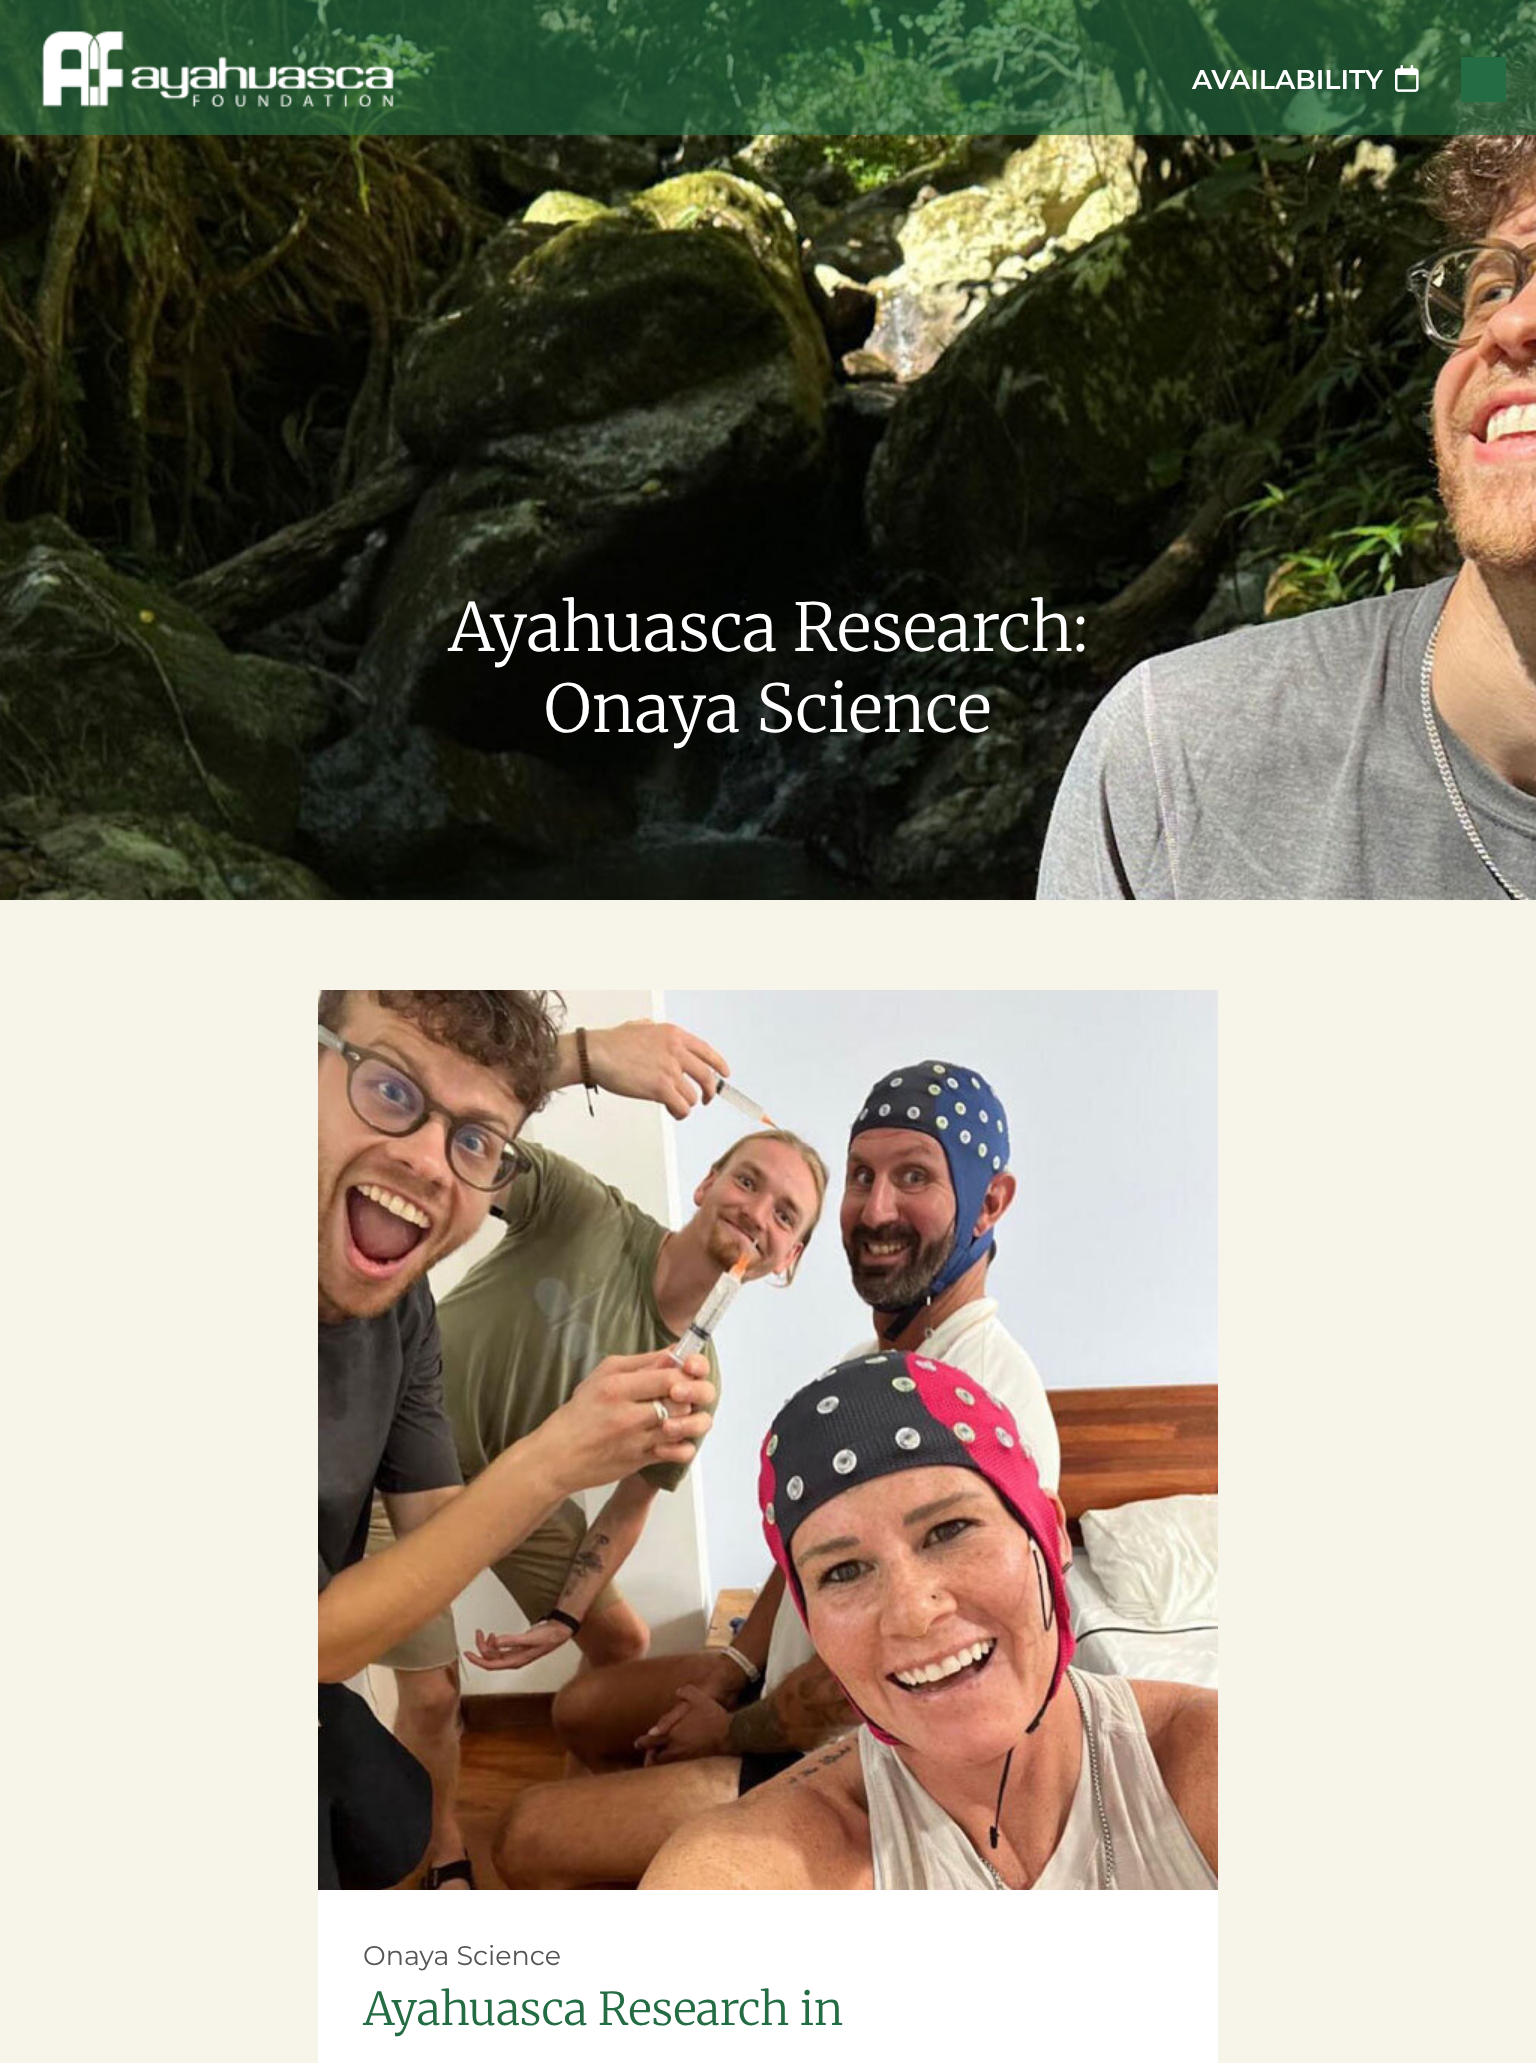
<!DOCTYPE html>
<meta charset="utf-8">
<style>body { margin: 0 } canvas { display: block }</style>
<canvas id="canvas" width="1536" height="2063"></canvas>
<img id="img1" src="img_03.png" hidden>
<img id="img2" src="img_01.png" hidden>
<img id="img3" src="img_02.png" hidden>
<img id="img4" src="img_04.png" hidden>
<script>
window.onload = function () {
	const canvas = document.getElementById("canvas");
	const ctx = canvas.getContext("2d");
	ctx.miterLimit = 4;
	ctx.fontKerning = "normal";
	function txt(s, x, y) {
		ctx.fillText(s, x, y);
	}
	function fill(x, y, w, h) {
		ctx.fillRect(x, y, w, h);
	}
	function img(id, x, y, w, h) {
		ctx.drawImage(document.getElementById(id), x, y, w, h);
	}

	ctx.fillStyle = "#F7F4E9";
	fill(0, 0, 1536, 2063);
	img("img1", 0, 0, 1536, 900);
	ctx.fillStyle = "rgba(35, 108, 68, 0.65)";
	fill(0, 0, 1536, 135);
	img("img2", 41, 31, 353, 76);
	img("img3", 1395, 64, 24, 28);
	ctx.fillStyle = "#236C44";
	fill(1461, 57, 45, 45);
	ctx.fillStyle = "#FFFFFF";
	fill(318, 1890, 900, 173);
	img("img4", 318, 990, 900, 900);
	ctx.font = "600 27px Montserrat";
	txt("AVAILABILITY", 1192, 89);
	ctx.font = "300 66px Merriweather";
	txt("Ayahuasca Research:", 448, 651);
	txt("Onaya Science", 544, 732);
	ctx.font = "27px Montserrat";
	ctx.fillStyle = "#555555";
	txt("Onaya Science", 363, 1965);
	ctx.font = "300 45px Merriweather";
	ctx.fillStyle = "#236C44";
	txt("Ayahuasca Research in", 363, 2025);
};
</script>
